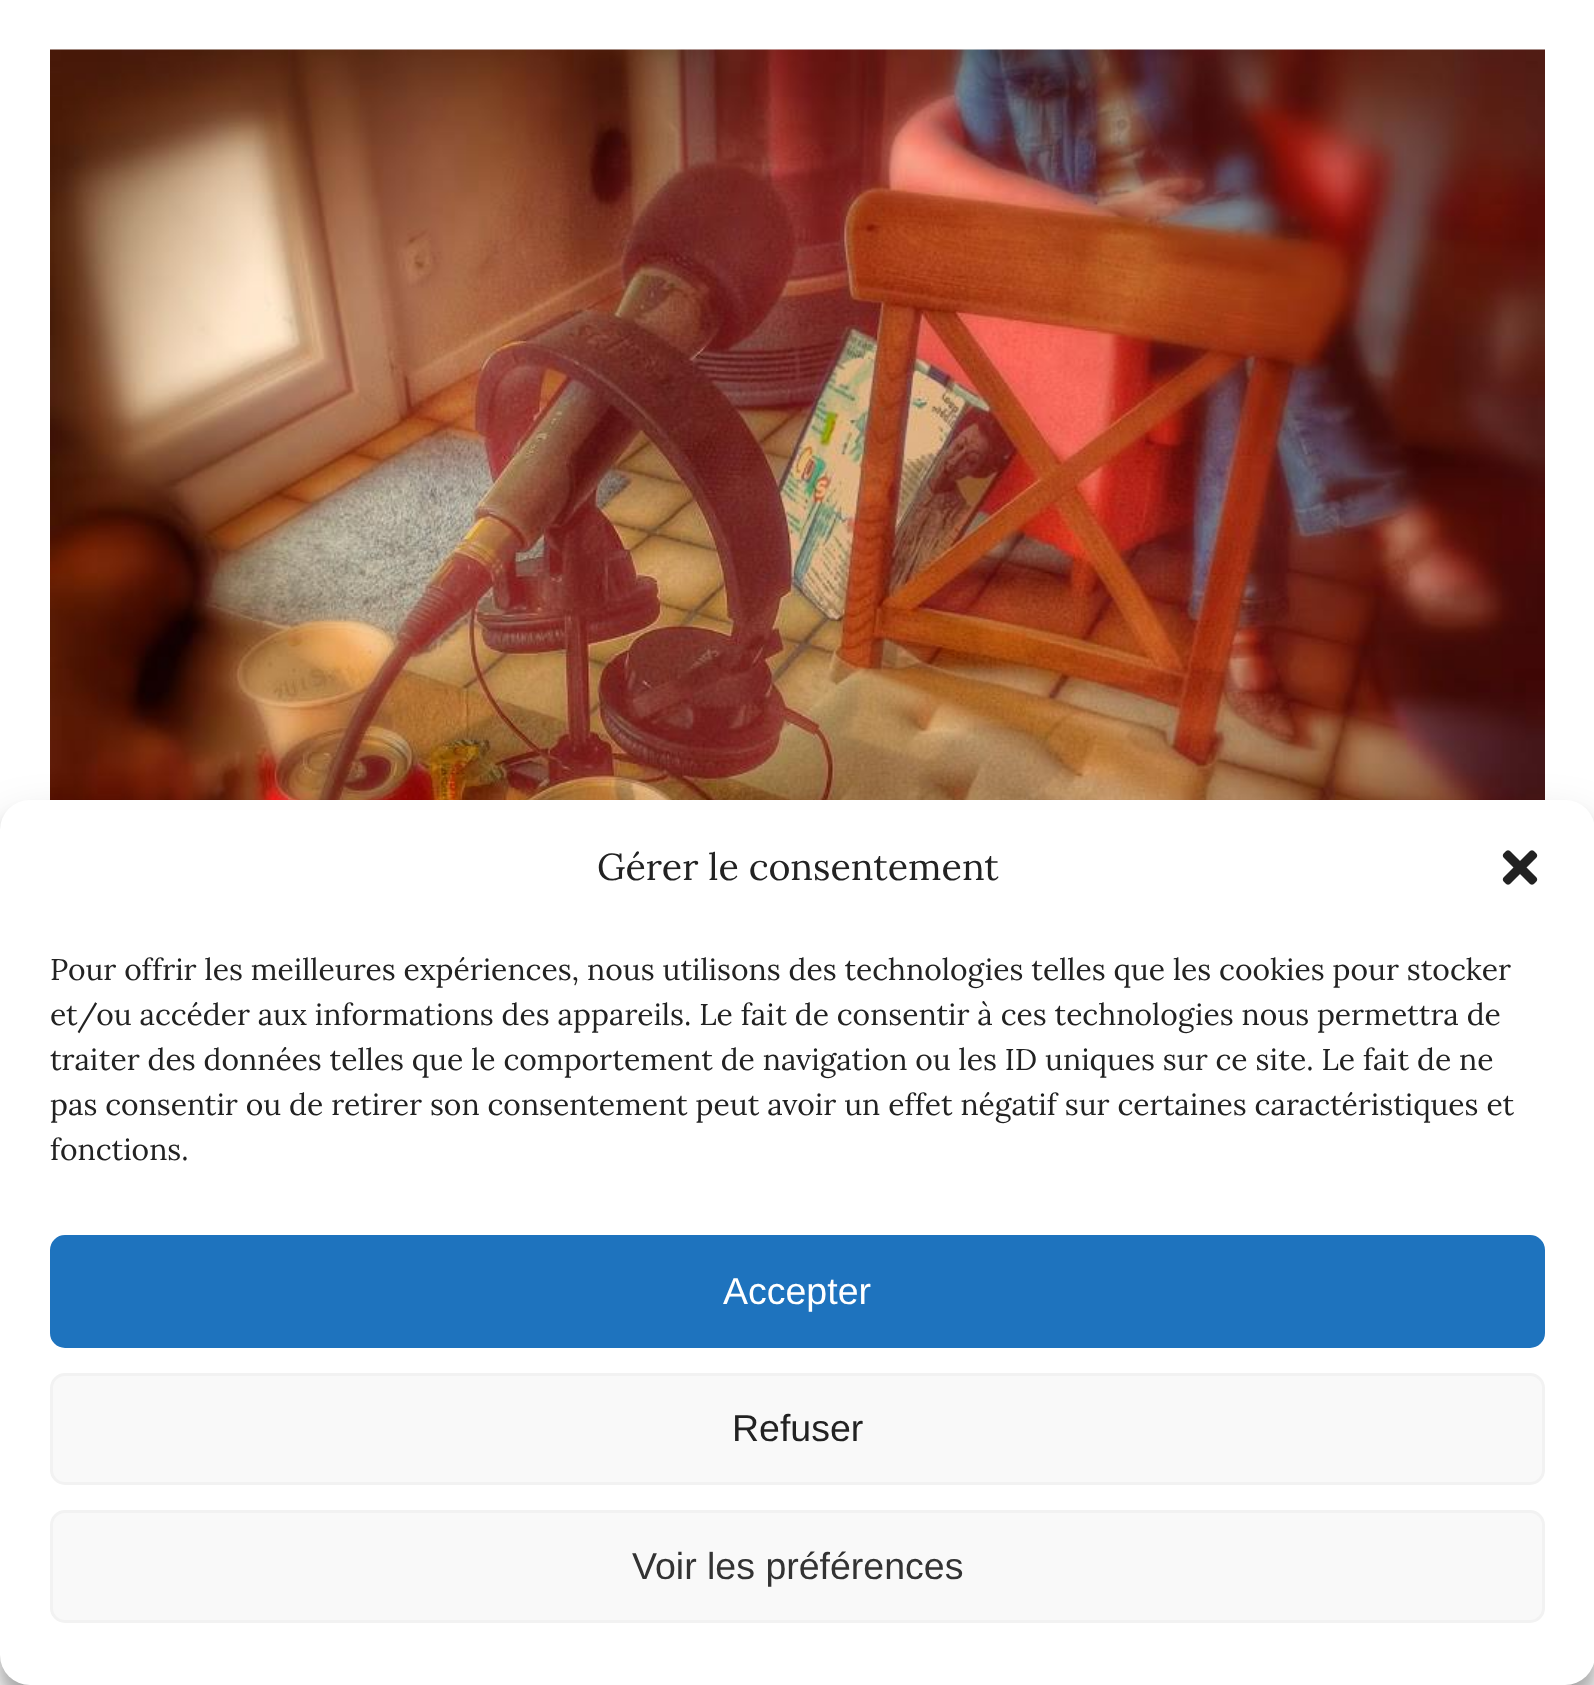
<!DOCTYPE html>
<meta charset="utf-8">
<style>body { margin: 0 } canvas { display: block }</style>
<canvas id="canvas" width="1594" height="1685"></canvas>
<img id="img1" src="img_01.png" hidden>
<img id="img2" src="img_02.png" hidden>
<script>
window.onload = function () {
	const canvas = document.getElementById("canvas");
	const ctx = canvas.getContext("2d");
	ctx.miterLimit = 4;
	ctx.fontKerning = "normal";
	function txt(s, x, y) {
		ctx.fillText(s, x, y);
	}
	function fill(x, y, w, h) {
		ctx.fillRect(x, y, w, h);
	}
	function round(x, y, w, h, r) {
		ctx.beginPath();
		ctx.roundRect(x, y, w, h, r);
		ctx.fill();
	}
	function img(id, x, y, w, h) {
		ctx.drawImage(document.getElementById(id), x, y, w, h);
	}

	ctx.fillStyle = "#FFFFFF";
	fill(0, 0, 1594, 1685);
	img("img1", 50, 49, 1495, 751);
	ctx.fillStyle = "rgba(0, 0, 0, 0.23)";
	ctx.filter = "blur(7.5px)";
	ctx.beginPath();
	ctx.roundRect(0, 815, 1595, 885, 30);
	ctx.fill();
	ctx.filter = "none";
	ctx.fillStyle = "rgba(0, 0, 0, 0.19)";
	ctx.filter = "blur(25px)";
	ctx.beginPath();
	ctx.roundRect(0, 825, 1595, 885, 30);
	ctx.fill();
	ctx.filter = "none";
	ctx.fillStyle = "#FFFFFF";
	round(0, 800, 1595, 885, 30);
	img("img2", 1502, 850, 36, 35);
	ctx.fillStyle = "#1E73BE";
	ctx.beginPath();
	ctx.roundRect(51.5, 1236.5, 1492, 110, 13.5);
	ctx.fill();
	ctx.strokeStyle = "#1E73BE";
	ctx.lineWidth = 3;
	ctx.stroke();
	ctx.fillStyle = "#F9F9F9";
	ctx.beginPath();
	ctx.roundRect(51.5, 1374.5, 1492, 109, 13.5);
	ctx.fill();
	ctx.strokeStyle = "#F2F2F2";
	ctx.stroke();
	ctx.beginPath();
	ctx.roundRect(51.5, 1511.5, 1492, 110, 13.5);
	ctx.fill();
	ctx.stroke();
	ctx.font = "37.5px Lora";
	ctx.fillStyle = "#222222";
	txt("Gérer le consentement", 597, 880);
	ctx.font = "30px Lora";
	txt("Pour offrir les meilleures expériences, nous utilisons des technologies telles que les cookies pour stocker", 50, 980);
	txt("et/ou accéder aux informations des appareils. Le fait de consentir à ces technologies nous permettra de", 50, 1025);
	txt("traiter des données telles que le comportement de navigation ou les ID uniques sur ce site. Le fait de ne", 50, 1070);
	txt("pas consentir ou de retirer son consentement peut avoir un effet négatif sur certaines caractéristiques et", 50, 1115);
	txt("fonctions.", 50, 1160);
	ctx.font = "37.5px Liberation Sans";
	ctx.fillStyle = "#FFFFFF";
	txt("Accepter", 723, 1304);
	ctx.fillStyle = "#222222";
	txt("Refuser", 732, 1441);
	ctx.fillStyle = "#333333";
	txt("Voir les préférences", 632, 1579);
};
</script>
